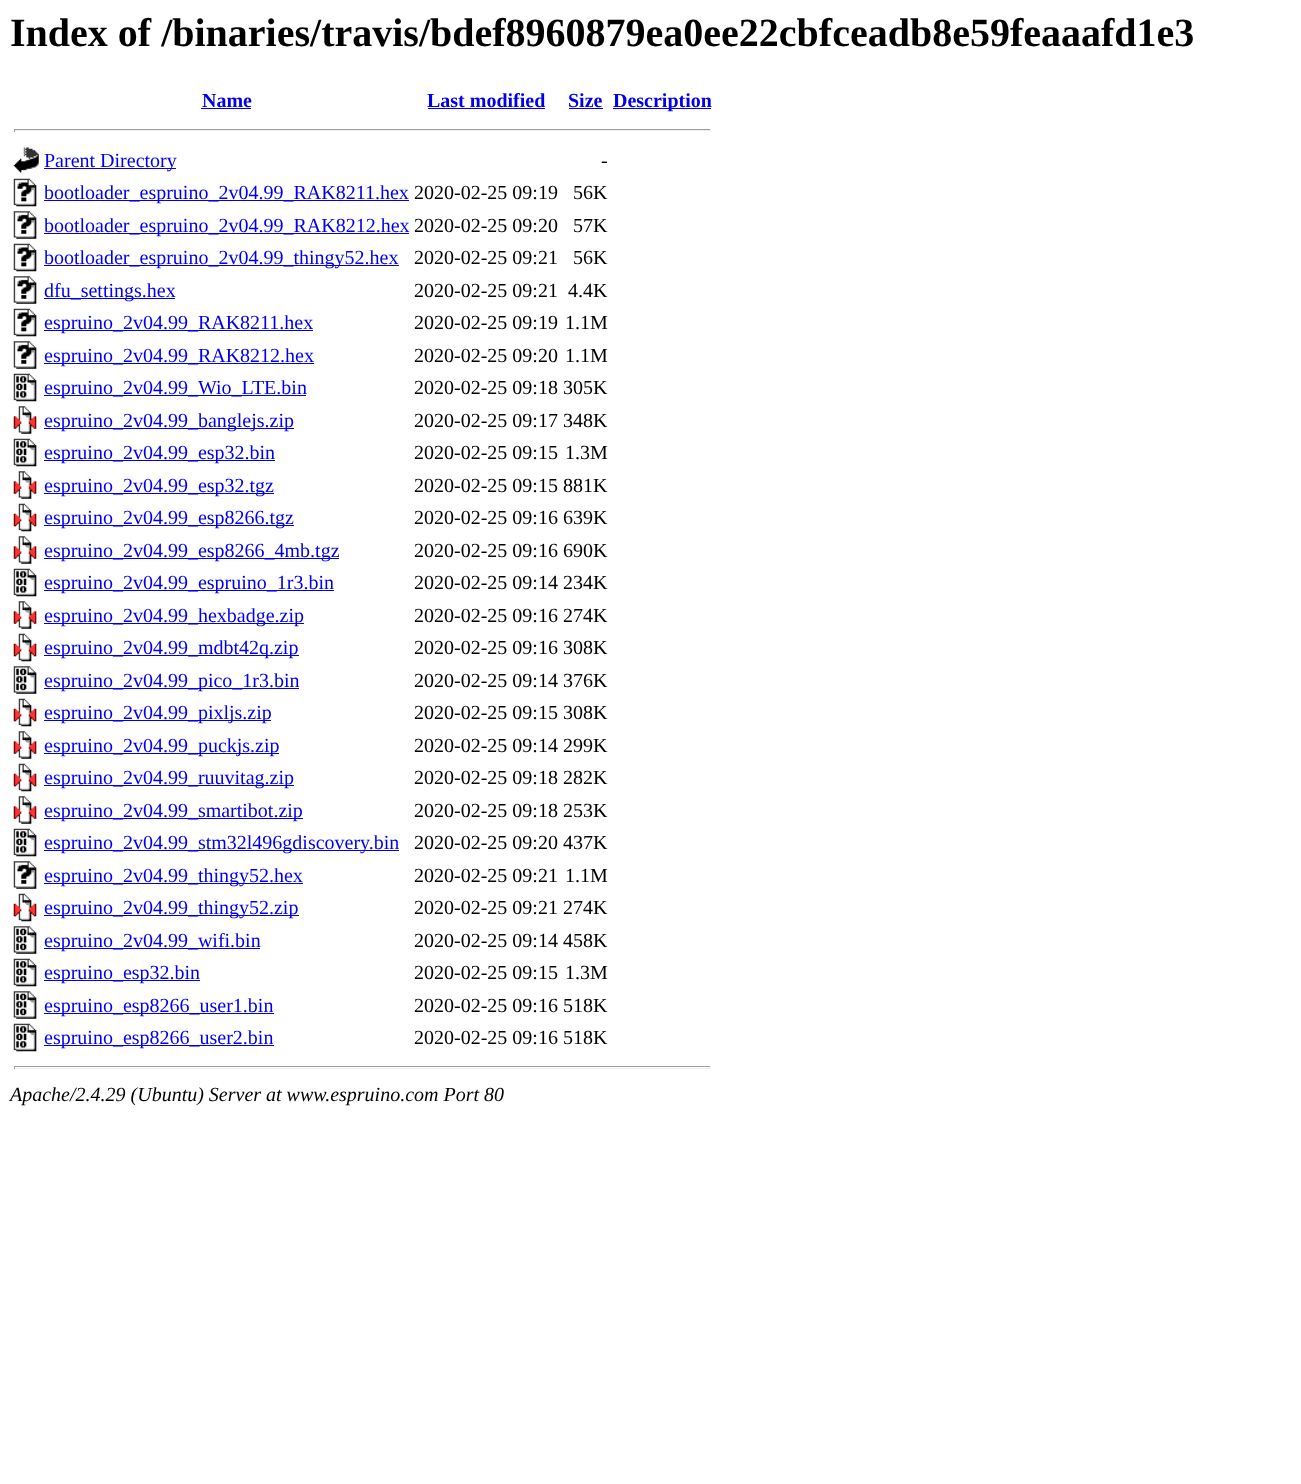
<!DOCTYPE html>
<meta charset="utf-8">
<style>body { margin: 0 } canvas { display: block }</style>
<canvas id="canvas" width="1301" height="1484"></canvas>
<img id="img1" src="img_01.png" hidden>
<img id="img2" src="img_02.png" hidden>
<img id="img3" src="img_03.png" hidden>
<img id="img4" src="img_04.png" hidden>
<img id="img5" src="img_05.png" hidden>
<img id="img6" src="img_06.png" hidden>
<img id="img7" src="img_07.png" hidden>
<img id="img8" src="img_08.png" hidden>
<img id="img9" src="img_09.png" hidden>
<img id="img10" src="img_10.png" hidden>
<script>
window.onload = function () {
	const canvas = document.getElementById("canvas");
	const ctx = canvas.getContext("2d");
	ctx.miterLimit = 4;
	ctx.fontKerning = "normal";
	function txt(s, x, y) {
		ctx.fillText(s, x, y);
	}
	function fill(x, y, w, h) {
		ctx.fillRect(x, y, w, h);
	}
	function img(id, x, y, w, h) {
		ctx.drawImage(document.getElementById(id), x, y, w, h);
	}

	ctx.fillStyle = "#FFFFFF";
	fill(0, 0, 1301, 1484);
	ctx.fillStyle = "#0000EE";
	fill(201, 108, 50, 1);
	fill(428, 108, 117, 1);
	fill(569, 108, 34, 1);
	fill(613, 108, 98, 1);
	ctx.fillStyle = "#9F9F9F";
	fill(14, 129, 697, 1);
	ctx.fillStyle = "#EEEEEE";
	fill(710, 129, 1, 3);
	fill(14, 130, 697, 1);
	ctx.fillStyle = "#9F9F9F";
	fill(14, 129, 1, 3);
	img("img1", 13, 147, 26, 26);
	ctx.fillStyle = "#0000EE";
	fill(44, 168, 132, 1);
	img("img2", 13, 178, 24, 29);
	fill(44, 200, 365, 1);
	img("img3", 13, 211, 24, 28);
	fill(44, 233, 365, 1);
	img("img2", 13, 243, 24, 29);
	fill(44, 265, 355, 1);
	img("img4", 13, 276, 24, 28);
	fill(44, 298, 131, 1);
	img("img2", 13, 308, 24, 29);
	fill(44, 330, 269, 1);
	img("img3", 13, 341, 24, 28);
	fill(44, 363, 270, 1);
	img("img5", 13, 373, 24, 29);
	fill(44, 395, 262, 1);
	img("img6", 13, 406, 24, 28);
	fill(44, 428, 250, 1);
	img("img5", 13, 438, 24, 29);
	fill(44, 460, 231, 1);
	img("img6", 13, 471, 24, 28);
	fill(44, 493, 230, 1);
	img("img7", 13, 503, 24, 29);
	fill(44, 525, 250, 1);
	img("img6", 13, 536, 24, 28);
	fill(44, 558, 295, 1);
	img("img8", 13, 568, 24, 29);
	fill(44, 590, 290, 1);
	img("img6", 13, 601, 24, 28);
	fill(44, 623, 260, 1);
	img("img7", 13, 633, 24, 29);
	fill(44, 655, 255, 1);
	img("img9", 13, 666, 24, 28);
	fill(44, 688, 255, 1);
	img("img7", 13, 698, 24, 29);
	fill(44, 720, 227, 1);
	img("img6", 13, 731, 24, 28);
	fill(44, 753, 235, 1);
	img("img7", 13, 763, 24, 29);
	fill(44, 785, 250, 1);
	img("img6", 13, 796, 24, 28);
	fill(44, 818, 259, 1);
	img("img5", 13, 828, 24, 29);
	fill(44, 850, 355, 1);
	img("img3", 13, 861, 24, 28);
	fill(44, 883, 259, 1);
	img("img7", 13, 893, 24, 29);
	fill(44, 915, 255, 1);
	img("img9", 13, 926, 24, 28);
	fill(44, 948, 216, 1);
	img("img5", 13, 958, 24, 29);
	fill(44, 980, 156, 1);
	img("img9", 13, 991, 24, 28);
	fill(44, 1013, 230, 1);
	img("img10", 13, 1023, 24, 29);
	fill(44, 1045, 230, 1);
	ctx.fillStyle = "#9F9F9F";
	fill(14, 1066, 697, 1);
	ctx.fillStyle = "#EEEEEE";
	fill(710, 1066, 1, 3);
	fill(14, 1068, 697, 1);
	ctx.fillStyle = "#9F9F9F";
	fill(14, 1066, 1, 3);
	ctx.font = "bold 40px Liberation Serif";
	ctx.fillStyle = "#000000";
	txt("Index of /binaries/travis/bdef8960879ea0ee22cbfceadb8e59feaaafd1e3", 10, 46);
	ctx.font = "bold 20px Liberation Serif";
	ctx.fillStyle = "#0000EE";
	txt("Name", 202, 107);
	txt("Last modified", 427, 107);
	txt("Size", 568, 107);
	txt("Description", 613, 107);
	ctx.font = "20px Liberation Serif";
	txt("Parent Directory", 44, 167);
	ctx.fillStyle = "#000000";
	txt("-", 601, 167);
	ctx.fillStyle = "#0000EE";
	txt("bootloader_espruino_2v04.99_RAK8211.hex", 44, 199);
	ctx.fillStyle = "#000000";
	txt("2020-02-25 09:19", 414, 199);
	txt("56K", 573, 199);
	ctx.fillStyle = "#0000EE";
	txt("bootloader_espruino_2v04.99_RAK8212.hex", 44, 232);
	ctx.fillStyle = "#000000";
	txt("2020-02-25 09:20", 414, 232);
	txt("57K", 573, 232);
	ctx.fillStyle = "#0000EE";
	txt("bootloader_espruino_2v04.99_thingy52.hex", 44, 264);
	ctx.fillStyle = "#000000";
	txt("2020-02-25 09:21", 414, 264);
	txt("56K", 573, 264);
	ctx.fillStyle = "#0000EE";
	txt("dfu_settings.hex", 44, 297);
	ctx.fillStyle = "#000000";
	txt("2020-02-25 09:21", 414, 297);
	txt("4.4K", 568, 297);
	ctx.fillStyle = "#0000EE";
	txt("espruino_2v04.99_RAK8211.hex", 44, 329);
	ctx.fillStyle = "#000000";
	txt("2020-02-25 09:19", 414, 329);
	txt("1.1M", 565, 329);
	ctx.fillStyle = "#0000EE";
	txt("espruino_2v04.99_RAK8212.hex", 44, 362);
	ctx.fillStyle = "#000000";
	txt("2020-02-25 09:20", 414, 362);
	txt("1.1M", 565, 362);
	ctx.fillStyle = "#0000EE";
	txt("espruino_2v04.99_Wio_LTE.bin", 44, 394);
	ctx.fillStyle = "#000000";
	txt("2020-02-25 09:18 305K", 414, 394);
	ctx.fillStyle = "#0000EE";
	txt("espruino_2v04.99_banglejs.zip", 44, 427);
	ctx.fillStyle = "#000000";
	txt("2020-02-25 09:17 348K", 414, 427);
	ctx.fillStyle = "#0000EE";
	txt("espruino_2v04.99_esp32.bin", 44, 459);
	ctx.fillStyle = "#000000";
	txt("2020-02-25 09:15", 414, 459);
	txt("1.3M", 565, 459);
	ctx.fillStyle = "#0000EE";
	txt("espruino_2v04.99_esp32.tgz", 44, 492);
	ctx.fillStyle = "#000000";
	txt("2020-02-25 09:15 881K", 414, 492);
	ctx.fillStyle = "#0000EE";
	txt("espruino_2v04.99_esp8266.tgz", 44, 524);
	ctx.fillStyle = "#000000";
	txt("2020-02-25 09:16 639K", 414, 524);
	ctx.fillStyle = "#0000EE";
	txt("espruino_2v04.99_esp8266_4mb.tgz", 44, 557);
	ctx.fillStyle = "#000000";
	txt("2020-02-25 09:16 690K", 414, 557);
	ctx.fillStyle = "#0000EE";
	txt("espruino_2v04.99_espruino_1r3.bin", 44, 589);
	ctx.fillStyle = "#000000";
	txt("2020-02-25 09:14 234K", 414, 589);
	ctx.fillStyle = "#0000EE";
	txt("espruino_2v04.99_hexbadge.zip", 44, 622);
	ctx.fillStyle = "#000000";
	txt("2020-02-25 09:16 274K", 414, 622);
	ctx.fillStyle = "#0000EE";
	txt("espruino_2v04.99_mdbt42q.zip", 44, 654);
	ctx.fillStyle = "#000000";
	txt("2020-02-25 09:16 308K", 414, 654);
	ctx.fillStyle = "#0000EE";
	txt("espruino_2v04.99_pico_1r3.bin", 44, 687);
	ctx.fillStyle = "#000000";
	txt("2020-02-25 09:14 376K", 414, 687);
	ctx.fillStyle = "#0000EE";
	txt("espruino_2v04.99_pixljs.zip", 44, 719);
	ctx.fillStyle = "#000000";
	txt("2020-02-25 09:15 308K", 414, 719);
	ctx.fillStyle = "#0000EE";
	txt("espruino_2v04.99_puckjs.zip", 44, 752);
	ctx.fillStyle = "#000000";
	txt("2020-02-25 09:14 299K", 414, 752);
	ctx.fillStyle = "#0000EE";
	txt("espruino_2v04.99_ruuvitag.zip", 44, 784);
	ctx.fillStyle = "#000000";
	txt("2020-02-25 09:18 282K", 414, 784);
	ctx.fillStyle = "#0000EE";
	txt("espruino_2v04.99_smartibot.zip", 44, 817);
	ctx.fillStyle = "#000000";
	txt("2020-02-25 09:18 253K", 414, 817);
	ctx.fillStyle = "#0000EE";
	txt("espruino_2v04.99_stm32l496gdiscovery.bin", 44, 849);
	ctx.fillStyle = "#000000";
	txt("2020-02-25 09:20 437K", 414, 849);
	ctx.fillStyle = "#0000EE";
	txt("espruino_2v04.99_thingy52.hex", 44, 882);
	ctx.fillStyle = "#000000";
	txt("2020-02-25 09:21", 414, 882);
	txt("1.1M", 565, 882);
	ctx.fillStyle = "#0000EE";
	txt("espruino_2v04.99_thingy52.zip", 44, 914);
	ctx.fillStyle = "#000000";
	txt("2020-02-25 09:21 274K", 414, 914);
	ctx.fillStyle = "#0000EE";
	txt("espruino_2v04.99_wifi.bin", 44, 947);
	ctx.fillStyle = "#000000";
	txt("2020-02-25 09:14 458K", 414, 947);
	ctx.fillStyle = "#0000EE";
	txt("espruino_esp32.bin", 44, 979);
	ctx.fillStyle = "#000000";
	txt("2020-02-25 09:15", 414, 979);
	txt("1.3M", 565, 979);
	ctx.fillStyle = "#0000EE";
	txt("espruino_esp8266_user1.bin", 44, 1012);
	ctx.fillStyle = "#000000";
	txt("2020-02-25 09:16 518K", 414, 1012);
	ctx.fillStyle = "#0000EE";
	txt("espruino_esp8266_user2.bin", 44, 1044);
	ctx.fillStyle = "#000000";
	txt("2020-02-25 09:16 518K", 414, 1044);
	ctx.font = "italic 20px Liberation Serif";
	txt("Apache/2.4.29 (Ubuntu) Server at www.espruino.com Port 80", 10, 1101);
};
</script>
